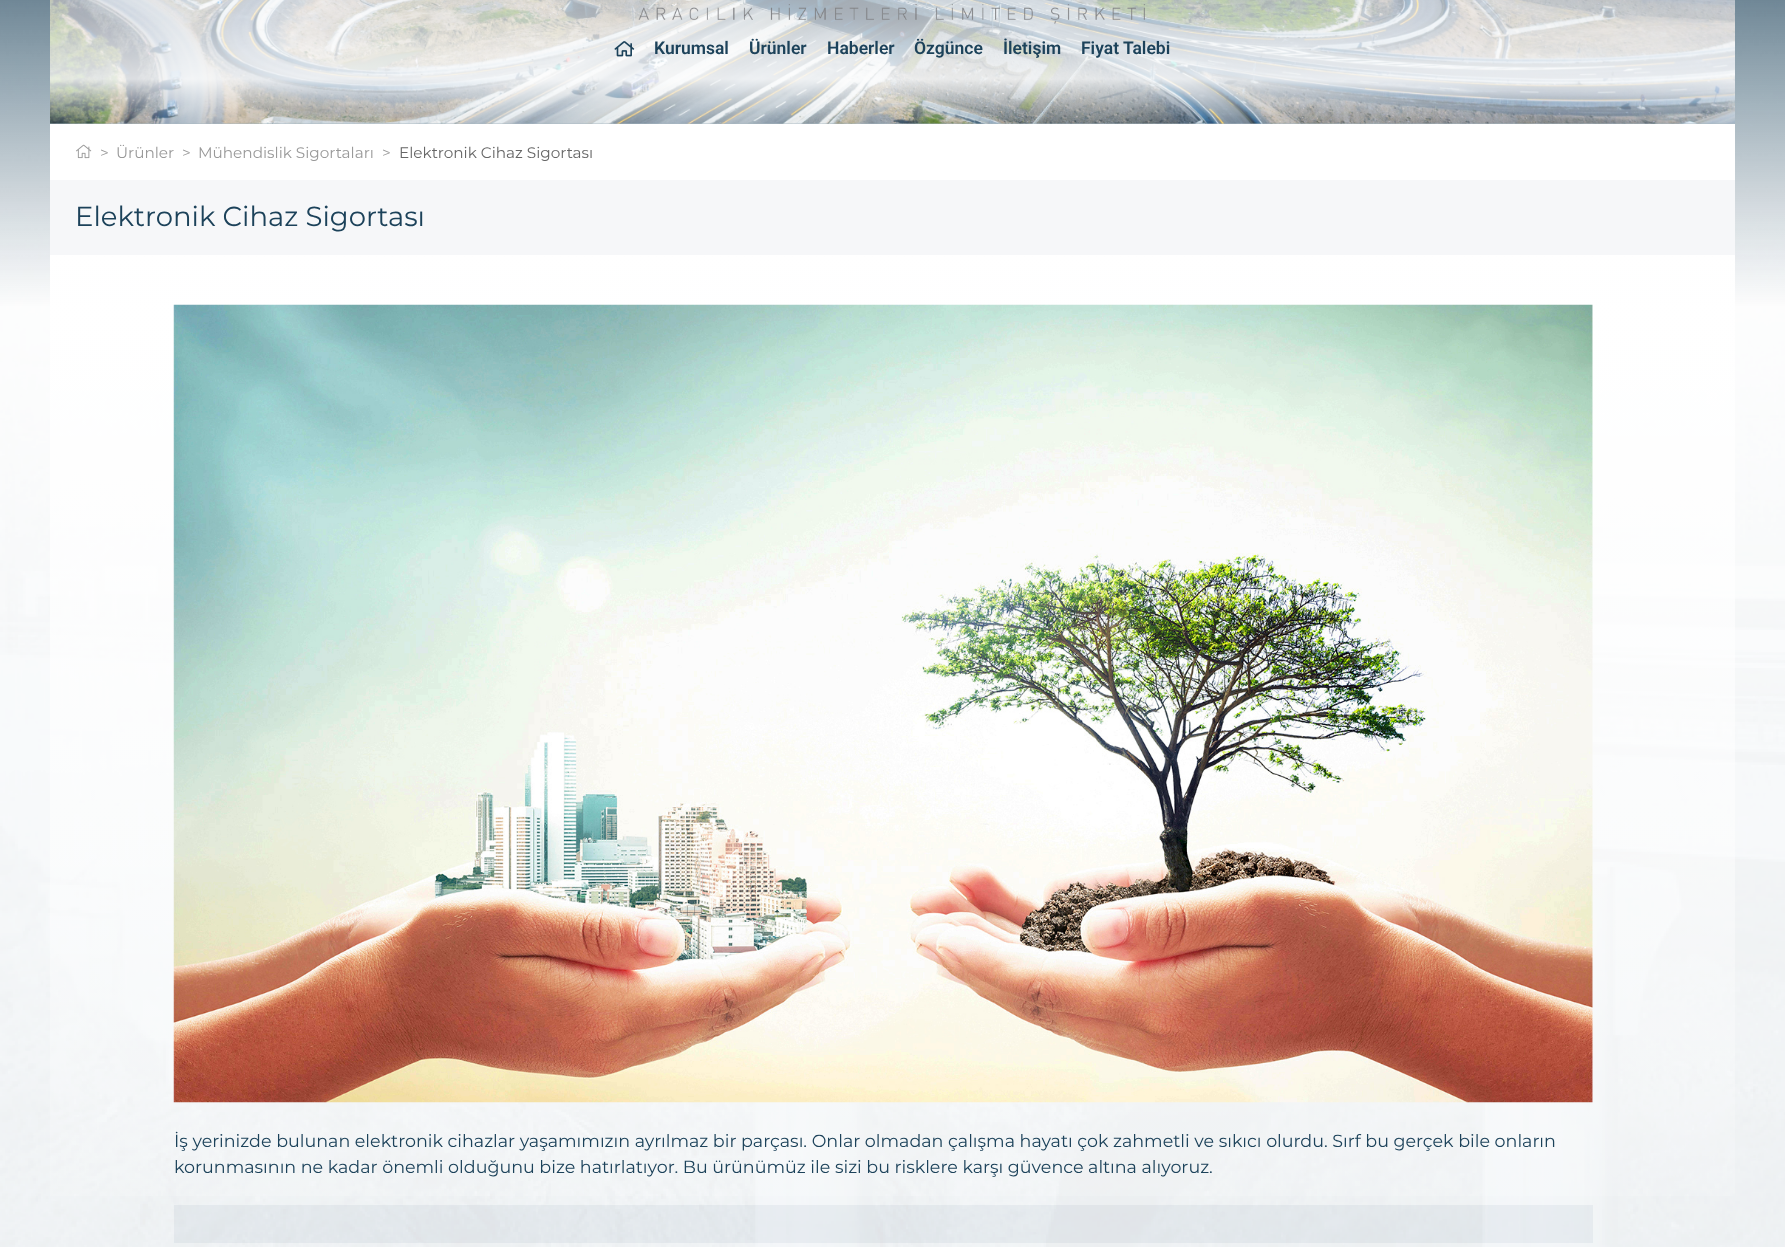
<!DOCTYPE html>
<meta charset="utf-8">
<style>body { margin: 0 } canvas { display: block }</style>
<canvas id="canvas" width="1785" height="1247"></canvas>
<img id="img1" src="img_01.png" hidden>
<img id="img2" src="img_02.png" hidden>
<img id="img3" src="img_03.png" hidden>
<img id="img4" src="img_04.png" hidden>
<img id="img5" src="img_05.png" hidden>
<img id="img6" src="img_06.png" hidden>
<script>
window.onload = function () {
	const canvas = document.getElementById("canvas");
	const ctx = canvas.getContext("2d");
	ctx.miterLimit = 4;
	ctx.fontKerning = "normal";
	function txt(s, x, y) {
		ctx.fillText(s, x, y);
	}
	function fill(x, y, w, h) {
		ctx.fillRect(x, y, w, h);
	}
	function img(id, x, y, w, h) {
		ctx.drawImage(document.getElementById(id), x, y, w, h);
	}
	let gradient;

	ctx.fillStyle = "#FFFFFF";
	fill(0, 0, 1785, 1247);
	img("img1", 0, 0, 1785, 1247);
	img("img2", 50, 0, 1685, 124);
	img("img3", 638, 4, 507, 20);
	img("img4", 614, 41, 21, 16);
	fill(50, 124, 1685, 56);
	img("img5", 76, 144, 16, 15);
	ctx.fillStyle = "#F6F7F9";
	fill(50, 180, 1685, 75);
	gradient = ctx.createLinearGradient(893, 255, 893, 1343);
	gradient.addColorStop(0, "#FFFFFF");
	gradient.addColorStop(1, "rgba(255, 255, 255, 0)");
	ctx.fillStyle = gradient;
	fill(50, 255, 1685, 941);
	img("img6", 173, 304, 1420, 799);
	ctx.fillStyle = "rgba(28, 66, 90, 0.05)";
	fill(174, 1205, 1419, 38);
	ctx.font = "600 17.5px Roboto";
	ctx.fillStyle = "#1C425A";
	txt("Kurumsal", 654, 54);
	txt("Ürünler", 749, 54);
	txt("Haberler", 827, 54);
	txt("Özgünce", 914, 54);
	txt("İletişim", 1003, 54);
	txt("Fiyat Talebi", 1081, 54);
	ctx.font = "15.25px Montserrat";
	ctx.fillStyle = "#999999";
	txt(">", 100, 158);
	txt("Ürünler", 116, 158);
	txt(">", 182, 158);
	txt("Mühendislik Sigortaları", 198, 158);
	txt(">", 382, 158);
	ctx.fillStyle = "#666666";
	txt("Elektronik Cihaz Sigortası", 399, 158);
	ctx.font = "27.5px Montserrat";
	ctx.fillStyle = "#1C425A";
	txt("Elektronik Cihaz Sigortası", 75, 226);
	ctx.font = "17.5px Montserrat";
	txt("İş yerinizde bulunan elektronik cihazlar yaşamımızın ayrılmaz bir parçası. Onlar olmadan çalışma hayatı çok zahmetli ve sıkıcı olurdu. Sırf bu gerçek bile onların", 174, 1147);
	txt("korunmasının ne kadar önemli olduğunu bize hatırlatıyor. Bu ürünümüz ile sizi bu risklere karşı güvence altına alıyoruz.", 174, 1173);
};
</script>
